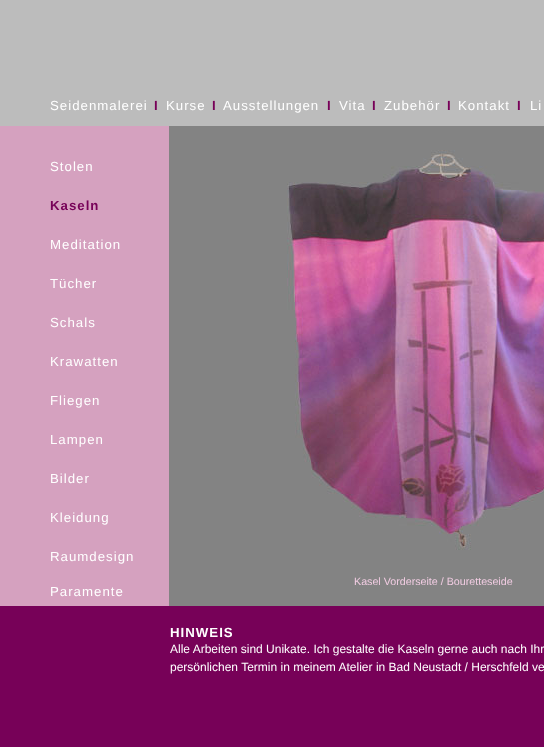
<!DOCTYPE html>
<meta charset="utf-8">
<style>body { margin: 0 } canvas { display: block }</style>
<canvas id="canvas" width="544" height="747"></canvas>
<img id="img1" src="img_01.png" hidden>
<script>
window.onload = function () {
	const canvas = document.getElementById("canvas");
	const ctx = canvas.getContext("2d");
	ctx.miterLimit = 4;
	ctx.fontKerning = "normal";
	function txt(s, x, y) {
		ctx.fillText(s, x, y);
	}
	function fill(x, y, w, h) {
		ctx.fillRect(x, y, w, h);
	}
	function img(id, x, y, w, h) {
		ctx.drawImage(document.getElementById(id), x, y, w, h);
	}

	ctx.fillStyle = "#BCBCBC";
	fill(0, 0, 544, 747);
	ctx.fillStyle = "#D5A1BF";
	fill(0, 126, 169, 480);
	ctx.fillStyle = "#838383";
	fill(169, 126, 375, 480);
	img("img1", 287, 150, 257, 400);
	ctx.fillStyle = "#770158";
	fill(0, 606, 544, 141);
	ctx.letterSpacing = "1px";
	ctx.font = "13.25px Liberation Sans";
	ctx.fillStyle = "#FFFFFF";
	txt("Seidenmalerei", 50, 110);
	ctx.font = "bold 13.25px Liberation Sans";
	ctx.fillStyle = "#770158";
	txt("I", 154, 110);
	ctx.font = "13.25px Liberation Sans";
	ctx.fillStyle = "#FFFFFF";
	txt("Kurse", 166, 110);
	ctx.font = "bold 13.25px Liberation Sans";
	ctx.fillStyle = "#770158";
	txt("I", 212, 110);
	ctx.font = "13.25px Liberation Sans";
	ctx.fillStyle = "#FFFFFF";
	txt("Ausstellungen", 223, 110);
	ctx.font = "bold 13.25px Liberation Sans";
	ctx.fillStyle = "#770158";
	txt("I", 327, 110);
	ctx.font = "13.25px Liberation Sans";
	ctx.fillStyle = "#FFFFFF";
	txt("Vita", 339, 110);
	ctx.font = "bold 13.25px Liberation Sans";
	ctx.fillStyle = "#770158";
	txt("I", 372, 110);
	ctx.font = "13.25px Liberation Sans";
	ctx.fillStyle = "#FFFFFF";
	txt("Zubehör", 384, 110);
	ctx.font = "bold 13.25px Liberation Sans";
	ctx.fillStyle = "#770158";
	txt("I", 447, 110);
	ctx.font = "13.25px Liberation Sans";
	ctx.fillStyle = "#FFFFFF";
	txt("Kontakt", 458, 110);
	ctx.font = "bold 13.25px Liberation Sans";
	ctx.fillStyle = "#770158";
	txt("I", 517, 110);
	ctx.font = "13.25px Liberation Sans";
	ctx.fillStyle = "#FFFFFF";
	txt("Li", 530, 110);
	txt("Stolen", 50, 171);
	ctx.font = "bold 13.25px Liberation Sans";
	ctx.fillStyle = "#770158";
	txt("Kaseln", 50, 210);
	ctx.font = "13.25px Liberation Sans";
	ctx.fillStyle = "#FFFFFF";
	txt("Meditation", 50, 249);
	txt("Tücher", 50, 288);
	txt("Schals", 50, 327);
	txt("Krawatten", 50, 366);
	txt("Fliegen", 50, 405);
	txt("Lampen", 50, 444);
	txt("Bilder", 50, 483);
	txt("Kleidung", 50, 522);
	txt("Raumdesign", 50, 561);
	txt("Paramente", 50, 596);
	ctx.letterSpacing = "0px";
	ctx.font = "10.7px Liberation Sans";
	ctx.fillStyle = "#F1CCE2";
	txt("Kasel Vorderseite / Bouretteseide", 354, 585);
	ctx.letterSpacing = "1px";
	ctx.font = "bold 13.25px Liberation Sans";
	ctx.fillStyle = "#FFFFFF";
	txt("HINWEIS", 170, 637);
	ctx.letterSpacing = "0px";
	ctx.font = "12px Liberation Sans";
	txt("Alle Arbeiten sind Unikate. Ich gestalte die Kaseln gerne auch nach Ihr", 170, 653);
	txt("persönlichen Termin in meinem Atelier in Bad Neustadt / Herschfeld ve", 170, 671);
};
</script>
